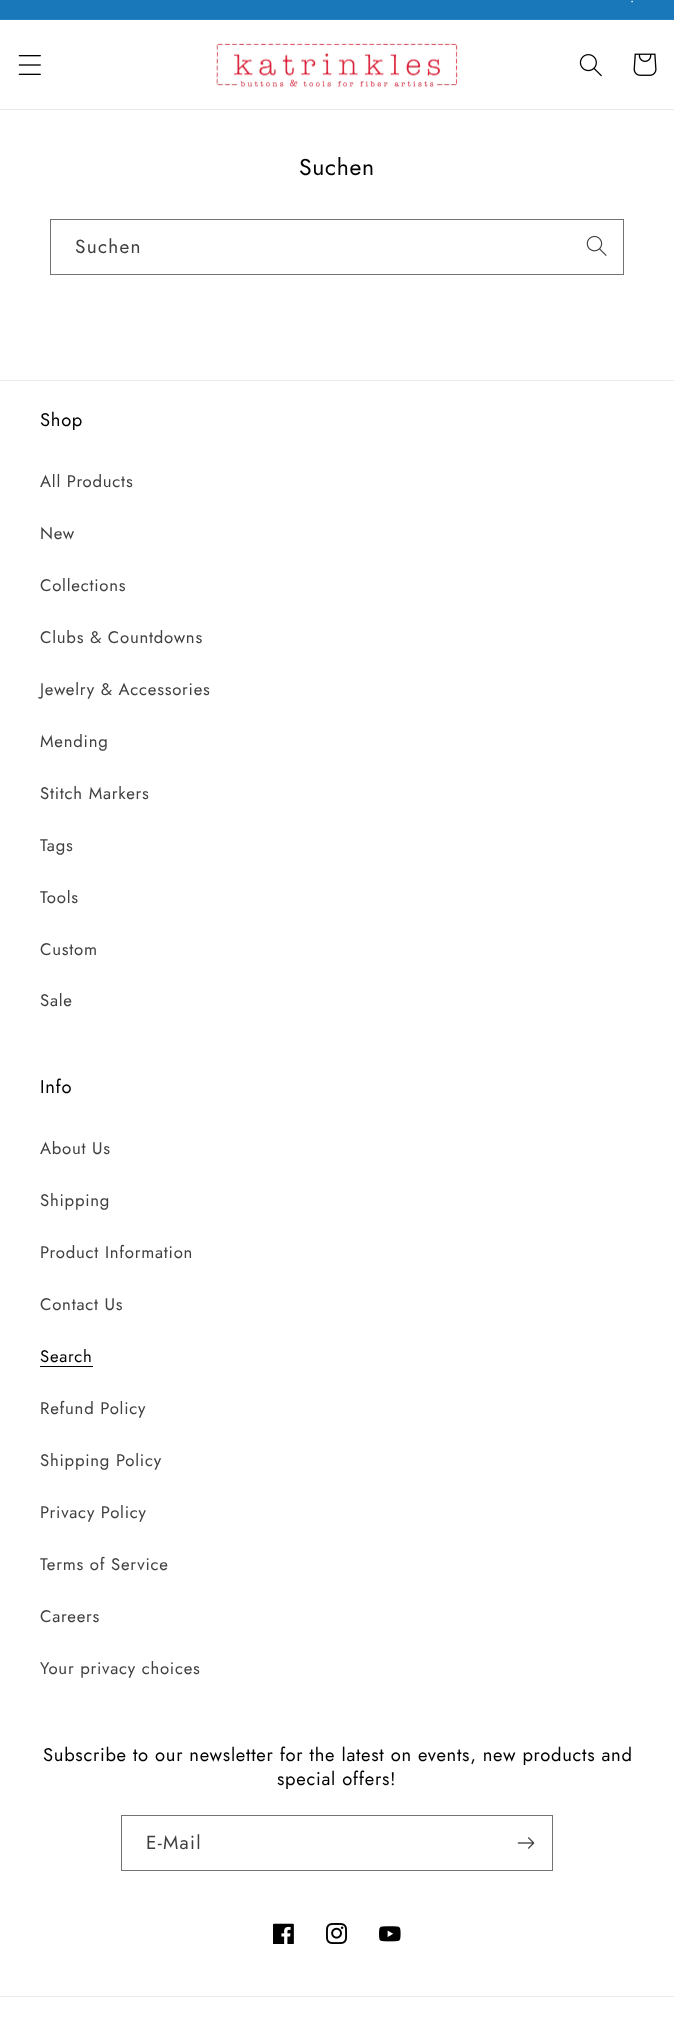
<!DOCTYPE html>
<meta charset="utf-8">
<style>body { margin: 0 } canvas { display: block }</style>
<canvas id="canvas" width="674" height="2026"></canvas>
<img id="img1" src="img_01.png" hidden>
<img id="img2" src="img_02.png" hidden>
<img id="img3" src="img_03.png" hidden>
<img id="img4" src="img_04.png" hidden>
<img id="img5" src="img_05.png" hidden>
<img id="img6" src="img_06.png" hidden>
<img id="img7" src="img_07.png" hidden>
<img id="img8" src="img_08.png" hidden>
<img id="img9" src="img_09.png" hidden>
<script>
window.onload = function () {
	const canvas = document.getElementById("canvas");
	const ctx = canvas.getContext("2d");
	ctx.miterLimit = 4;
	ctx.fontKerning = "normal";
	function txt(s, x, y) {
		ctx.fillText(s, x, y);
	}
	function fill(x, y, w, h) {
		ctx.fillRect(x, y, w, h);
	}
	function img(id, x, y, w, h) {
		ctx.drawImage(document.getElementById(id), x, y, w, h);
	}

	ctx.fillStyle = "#FFFFFF";
	fill(0, 0, 674, 2026);
	ctx.fillStyle = "#1878B9";
	fill(0, 0, 674, 19);
	ctx.fillStyle = "#2A83BF";
	fill(0, 19, 674, 1);
	ctx.fillStyle = "#EBEBEB";
	fill(0, 109, 674, 1);
	img("img1", 18, 55, 23, 20);
	img("img2", 216, 43, 244, 45);
	img("img3", 579, 54, 23, 23);
	img("img4", 633, 53, 24, 23);
	img("img5", 586, 235, 21, 21);
	ctx.strokeStyle = "#737373";
	ctx.strokeRect(50.5, 219.5, 573, 55);
	fill(0, 380, 674, 1);
	ctx.fillStyle = "#000000";
	fill(40, 1366, 53, 1);
	ctx.strokeRect(121.5, 1815.5, 431, 55);
	img("img6", 517, 1837, 18, 12);
	img("img7", 273, 1923, 21, 21);
	img("img8", 326, 1923, 22, 21);
	img("img9", 379, 1926, 22, 16);
	ctx.fillStyle = "#EBEBEB";
	fill(0, 1996, 674, 1);
	ctx.letterSpacing = "1.25px";
	ctx.font = "14px Jost";
	ctx.fillStyle = "#FFFFFF";
	txt(".", 630, 2);
	ctx.letterSpacing = "0.7px";
	ctx.font = "23px Jost";
	ctx.fillStyle = "#000000";
	txt("Suchen", 299, 175);
	ctx.letterSpacing = "1.25px";
	ctx.font = "19px Jost";
	ctx.fillStyle = "#404040";
	txt("Suchen", 75, 253);
	ctx.letterSpacing = "0.7px";
	ctx.font = "18.4px Jost";
	ctx.fillStyle = "#000000";
	txt("Shop", 40, 426);
	ctx.letterSpacing = "0.75px";
	ctx.font = "16.75px Jost";
	ctx.fillStyle = "#404040";
	txt("All Products", 40, 487);
	txt("New", 40, 539);
	txt("Collections", 40, 591);
	txt("Clubs & Countdowns", 40, 643);
	txt("Jewelry & Accessories", 40, 695);
	txt("Mending", 40, 747);
	txt("Stitch Markers", 40, 799);
	txt("Tags", 40, 851);
	txt("Tools", 40, 903);
	txt("Custom", 40, 955);
	txt("Sale", 40, 1006);
	ctx.letterSpacing = "0.7px";
	ctx.font = "18.4px Jost";
	ctx.fillStyle = "#000000";
	txt("Info", 40, 1093);
	ctx.letterSpacing = "0.75px";
	ctx.font = "16.75px Jost";
	ctx.fillStyle = "#404040";
	txt("About Us", 40, 1154);
	txt("Shipping", 40, 1206);
	txt("Product Information", 40, 1258);
	txt("Contact Us", 40, 1310);
	ctx.fillStyle = "#000000";
	txt("Search", 40, 1362);
	ctx.fillStyle = "#404040";
	txt("Refund Policy", 40, 1414);
	txt("Shipping Policy", 40, 1466);
	txt("Privacy Policy", 40, 1518);
	txt("Terms of Service", 40, 1570);
	txt("Careers", 40, 1622);
	txt("Your privacy choices", 40, 1674);
	ctx.letterSpacing = "0.7px";
	ctx.font = "18.4px Jost";
	ctx.fillStyle = "#000000";
	txt("Subscribe to our newsletter for the latest on events, new products and", 43, 1761);
	txt("special offers!", 277, 1785);
	ctx.letterSpacing = "1.25px";
	ctx.font = "19px Jost";
	ctx.fillStyle = "#404040";
	txt("E-Mail", 146, 1849);
};
</script>
